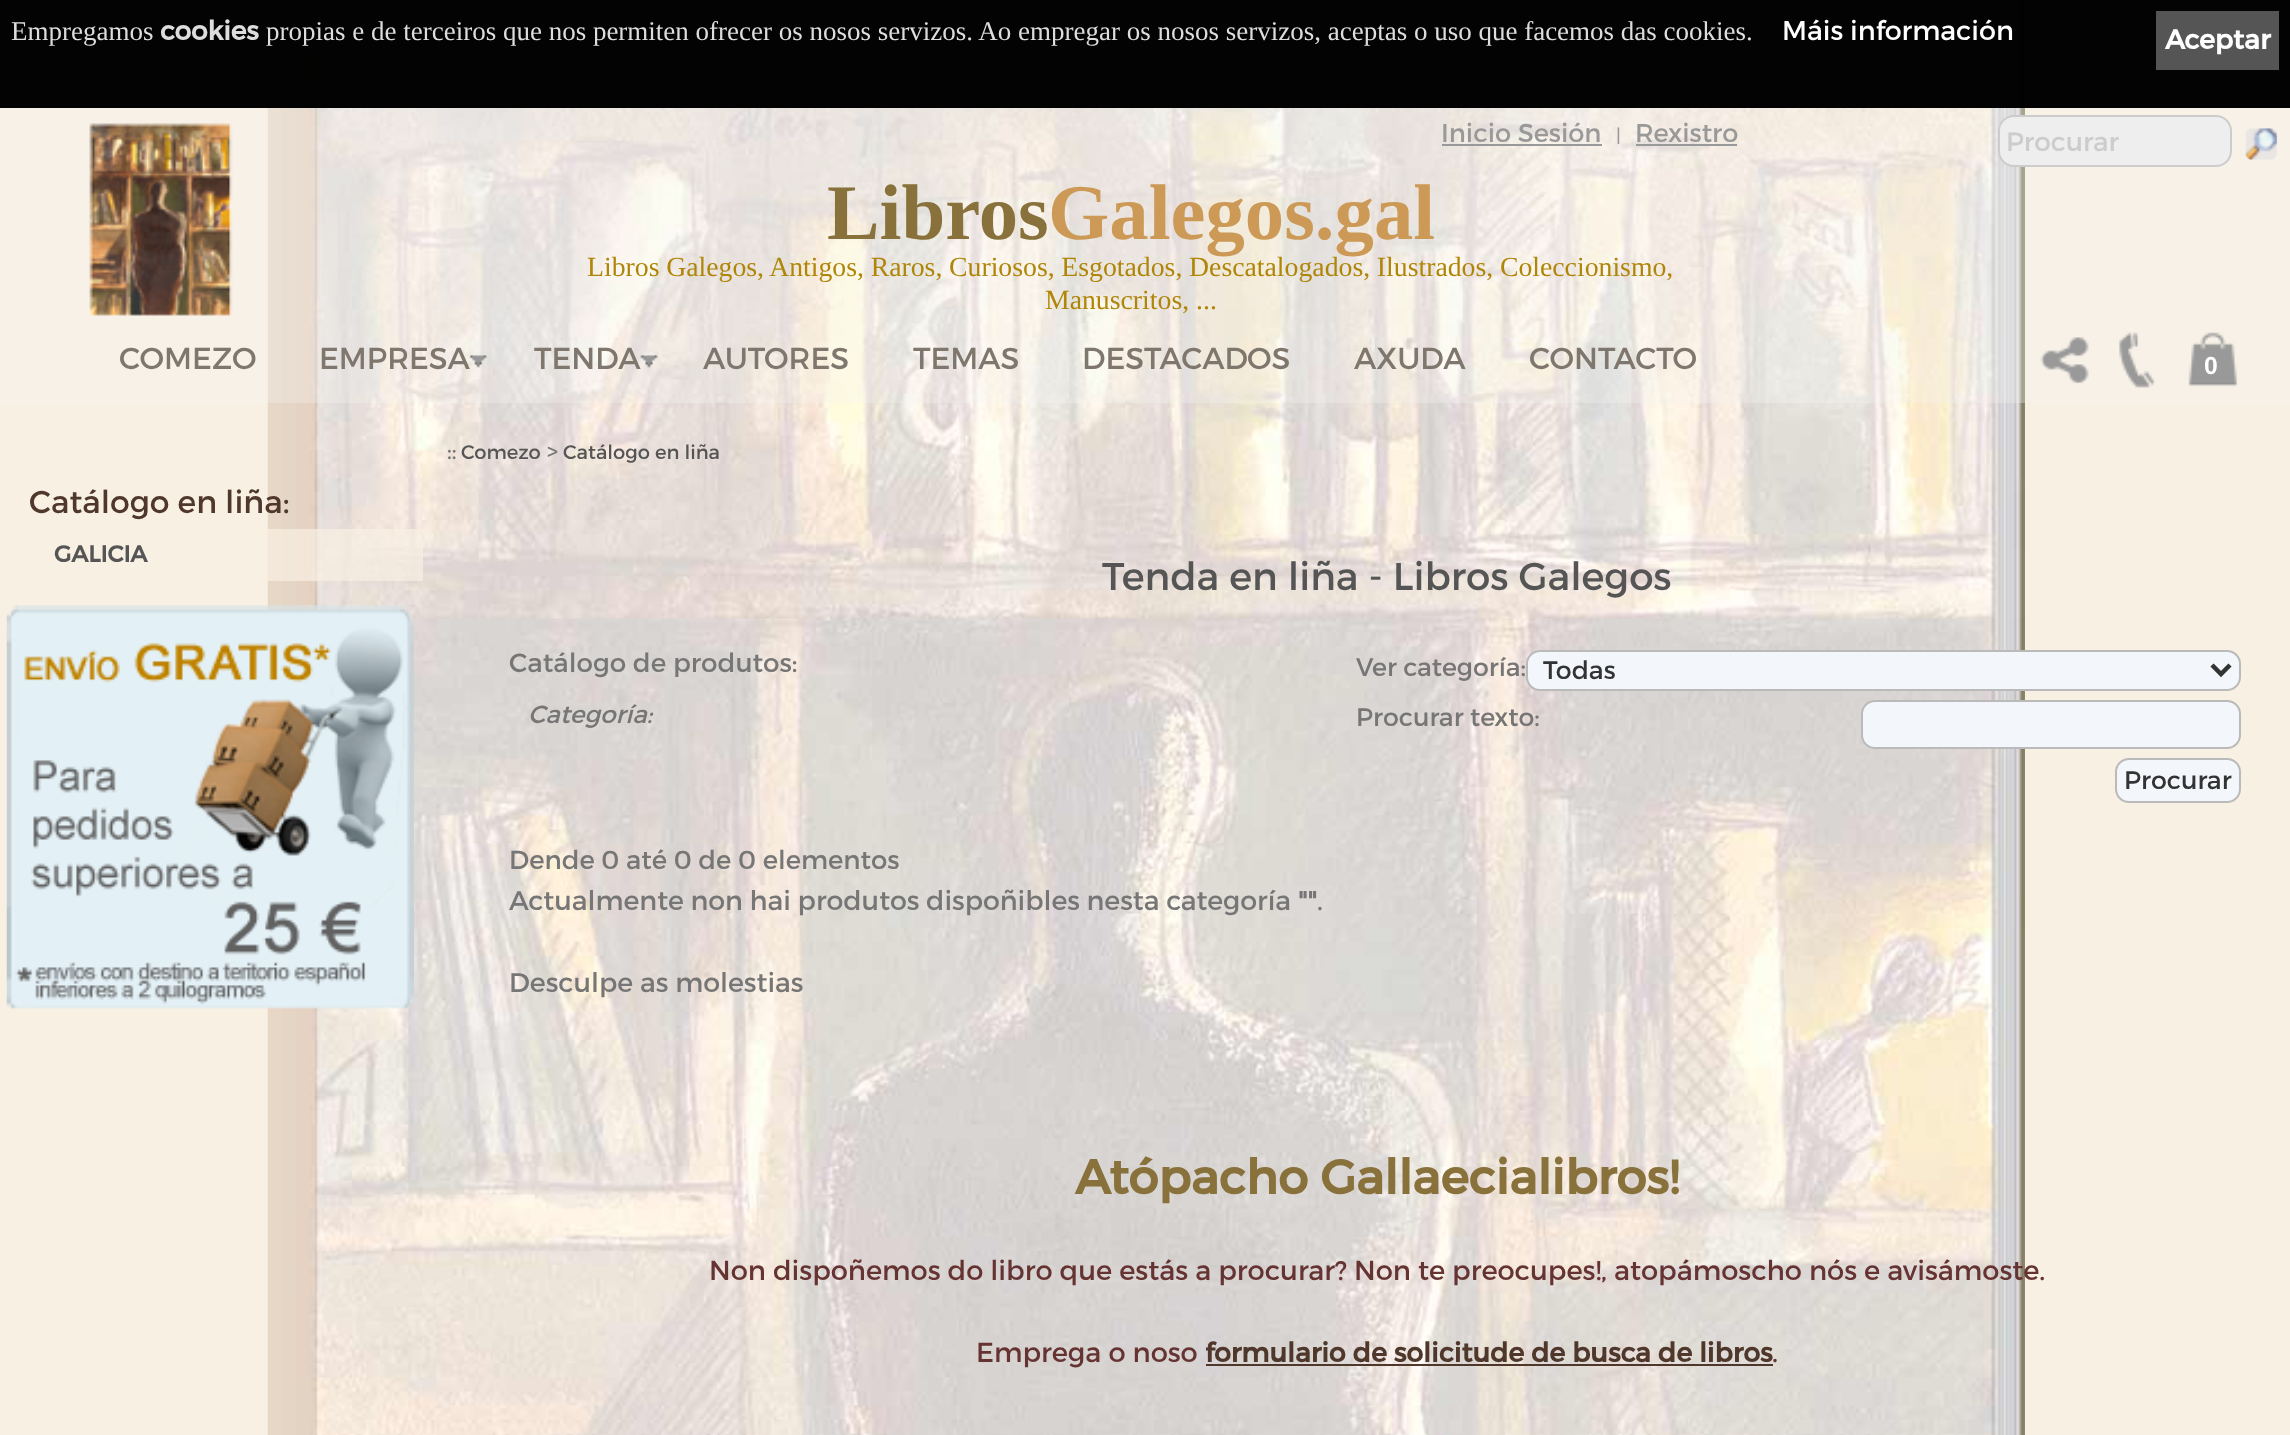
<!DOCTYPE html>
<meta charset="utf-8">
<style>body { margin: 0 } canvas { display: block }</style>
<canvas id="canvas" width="2290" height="1435"></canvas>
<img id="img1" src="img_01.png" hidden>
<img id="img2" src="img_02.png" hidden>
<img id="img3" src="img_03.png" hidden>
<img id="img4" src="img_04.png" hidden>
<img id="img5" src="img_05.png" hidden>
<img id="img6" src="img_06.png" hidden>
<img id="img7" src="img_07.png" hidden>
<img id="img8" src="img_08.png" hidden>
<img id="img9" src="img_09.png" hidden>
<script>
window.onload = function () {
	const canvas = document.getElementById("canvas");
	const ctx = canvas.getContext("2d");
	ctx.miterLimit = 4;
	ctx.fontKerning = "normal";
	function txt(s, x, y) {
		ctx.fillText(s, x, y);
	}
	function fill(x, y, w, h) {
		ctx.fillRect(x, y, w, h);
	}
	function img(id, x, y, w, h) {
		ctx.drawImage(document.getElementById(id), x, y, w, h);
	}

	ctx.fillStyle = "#F8F0E3";
	fill(0, 0, 2290, 1435);
	img("img1", 267, 0, 1758, 1435);
	ctx.fillStyle = "rgba(0, 0, 0, 0.99)";
	fill(0, 0, 2290, 108);
	ctx.fillStyle = "#555555";
	fill(2156, 11, 123, 59);
	ctx.fillStyle = "rgba(245, 244, 243, 0.3)";
	fill(0, 108, 2290, 295);
	img("img2", 89, 123, 144, 193);
	ctx.fillStyle = "#999999";
	fill(1442, 144, 160, 2);
	fill(1636, 144, 101, 2);
	ctx.fillStyle = "#EEEEEE";
	ctx.beginPath();
	ctx.roundRect(1999, 116, 232, 50, 15);
	ctx.fill();
	ctx.strokeStyle = "#CCCCCC";
	ctx.lineWidth = 2;
	ctx.stroke();
	img("img3", 2245, 128, 33, 32);
	img("img4", 469, 355, 18, 13);
	img("img5", 640, 355, 18, 13);
	img("img6", 2040, 337, 49, 47);
	img("img7", 2119, 332, 37, 56);
	img("img8", 2188, 332, 50, 55);
	ctx.fillStyle = "rgba(248, 240, 227, 0.7)";
	fill(267, 529, 156, 52);
	img("img9", 6, 605, 408, 404);
	ctx.fillStyle = "#F3F6FB";
	ctx.beginPath();
	ctx.roundRect(1527, 651, 713, 39, 13);
	ctx.fill();
	ctx.strokeStyle = "#BABABA";
	ctx.stroke();
	ctx.beginPath();
	ctx.moveTo(2212, 665);
	ctx.lineTo(2221, 674);
	ctx.lineTo(2230, 665);
	ctx.strokeStyle = "#333333";
	ctx.lineWidth = 4.5;
	ctx.stroke();
	ctx.beginPath();
	ctx.roundRect(1862, 701, 378, 47, 13);
	ctx.fill();
	ctx.strokeStyle = "#BABABA";
	ctx.lineWidth = 2;
	ctx.stroke();
	ctx.beginPath();
	ctx.roundRect(2116, 759, 124, 43, 13);
	ctx.fill();
	ctx.stroke();
	ctx.fillStyle = "#4F372B";
	fill(1206, 1364, 567, 2);
	ctx.font = "27px Liberation Serif";
	ctx.fillStyle = "#DDDDDD";
	txt("Empregamos", 11, 40);
	ctx.font = "bold 26.5px Montserrat";
	txt("cookies", 160, 40);
	ctx.font = "27px Liberation Serif";
	txt("propias e de terceiros que nos permiten ofrecer os nosos servizos. Ao empregar os nosos servizos, aceptas o uso que facemos das cookies.", 266, 40);
	ctx.font = "27px Montserrat";
	ctx.fillStyle = "#FFFFFF";
	txt("Máis información", 1782, 40);
	ctx.font = "bold 27px Montserrat";
	txt("Aceptar", 2165, 49);
	ctx.font = "25.75px Montserrat";
	ctx.fillStyle = "#999999";
	txt("Inicio Sesión", 1441, 142);
	ctx.font = "18px Montserrat";
	txt("|", 1616, 142);
	ctx.font = "25.75px Montserrat";
	txt("Rexistro", 1635, 142);
	ctx.font = "bold 78.75px Liberation Serif";
	ctx.fillStyle = "#89713B";
	txt("Libros", 827, 239);
	ctx.fillStyle = "#CC9A56";
	txt("Galegos.gal", 1048, 239);
	ctx.wordSpacing = "-0.25px";
	ctx.font = "27.75px Liberation Serif";
	ctx.fillStyle = "#B08609";
	txt("Libros Galegos, Antigos, Raros, Curiosos, Esgotados, Descatalogados, Ilustrados, Coleccionismo,", 587, 276);
	ctx.wordSpacing = "0px";
	txt("Manuscritos, ...", 1045, 309);
	ctx.font = "26.5px Montserrat";
	ctx.fillStyle = "#CCCCCC";
	txt("Procurar", 2006, 151);
	ctx.font = "30.25px Montserrat";
	ctx.fillStyle = "#7F766D";
	txt("COMEZO", 119, 369);
	txt("EMPRESA", 319, 369);
	txt("TENDA", 534, 369);
	txt("AUTORES", 703, 369);
	txt("TEMAS", 913, 369);
	txt("DESTACADOS", 1082, 369);
	txt("AXUDA", 1354, 369);
	txt("CONTACTO", 1529, 369);
	ctx.font = "bold 24.75px Liberation Sans";
	ctx.fillStyle = "#FFFFFF";
	txt("0", 2204, 374);
	ctx.font = "31.5px Montserrat";
	ctx.fillStyle = "#4F372B";
	txt("Catálogo en liña:", 29, 513);
	ctx.font = "bold 23px Montserrat";
	ctx.fillStyle = "#555555";
	txt("GALICIA", 54, 562);
	ctx.font = "22px Montserrat";
	ctx.fillStyle = "#767676";
	txt("::", 447, 459);
	ctx.font = "19.5px Montserrat";
	ctx.fillStyle = "#555555";
	txt("Comezo", 461, 459);
	ctx.font = "22px Montserrat";
	ctx.fillStyle = "#767676";
	txt(">", 547, 459);
	ctx.font = "19.5px Montserrat";
	ctx.fillStyle = "#555555";
	txt("Catálogo en liña", 563, 459);
	ctx.font = "38.75px Montserrat";
	txt("Tenda en liña - Libros Galegos", 1102, 590);
	ctx.font = "26.25px Montserrat";
	ctx.fillStyle = "#767676";
	txt("Catálogo de produtos:", 509, 672);
	ctx.font = "italic 24.75px Montserrat";
	txt("Categoría:", 528, 723);
	ctx.font = "25.25px Montserrat";
	txt("Ver categoría:", 1356, 676);
	ctx.fillStyle = "#333333";
	txt("Todas", 1543, 679);
	ctx.fillStyle = "#767676";
	txt("Procurar texto:", 1356, 726);
	ctx.fillStyle = "#333333";
	txt("Procurar", 2124, 789);
	ctx.font = "26px Montserrat";
	ctx.fillStyle = "#767676";
	txt("Dende 0 até 0 de 0 elementos", 509, 869);
	ctx.wordSpacing = "-0.25px";
	ctx.font = "26.9px Montserrat";
	txt("Actualmente non hai produtos dispoñibles nesta categoría", 509, 910);
	ctx.wordSpacing = "0px";
	ctx.font = "bold 26px Montserrat";
	txt("\"\"", 1298, 910);
	ctx.font = "26.9px Montserrat";
	txt(".", 1317, 910);
	txt("Desculpe as molestias", 509, 992);
	ctx.font = "bold 47.9px Montserrat";
	ctx.fillStyle = "#89713B";
	txt("Atópacho Gallaecialibros!", 1075, 1194);
	ctx.font = "27.35px Montserrat";
	ctx.fillStyle = "#663333";
	txt("Non dispoñemos do libro que estás a procurar? Non te preocupes!, atopámoscho nós e avisámoste.", 709, 1280);
	txt("Emprega o noso", 976, 1362);
	ctx.font = "bold 26.9px Montserrat";
	ctx.fillStyle = "#4F372B";
	txt("formulario de solicitude de busca de libros", 1205, 1362);
	ctx.font = "27.35px Montserrat";
	ctx.fillStyle = "#663333";
	txt(".", 1772, 1362);
};
</script>
